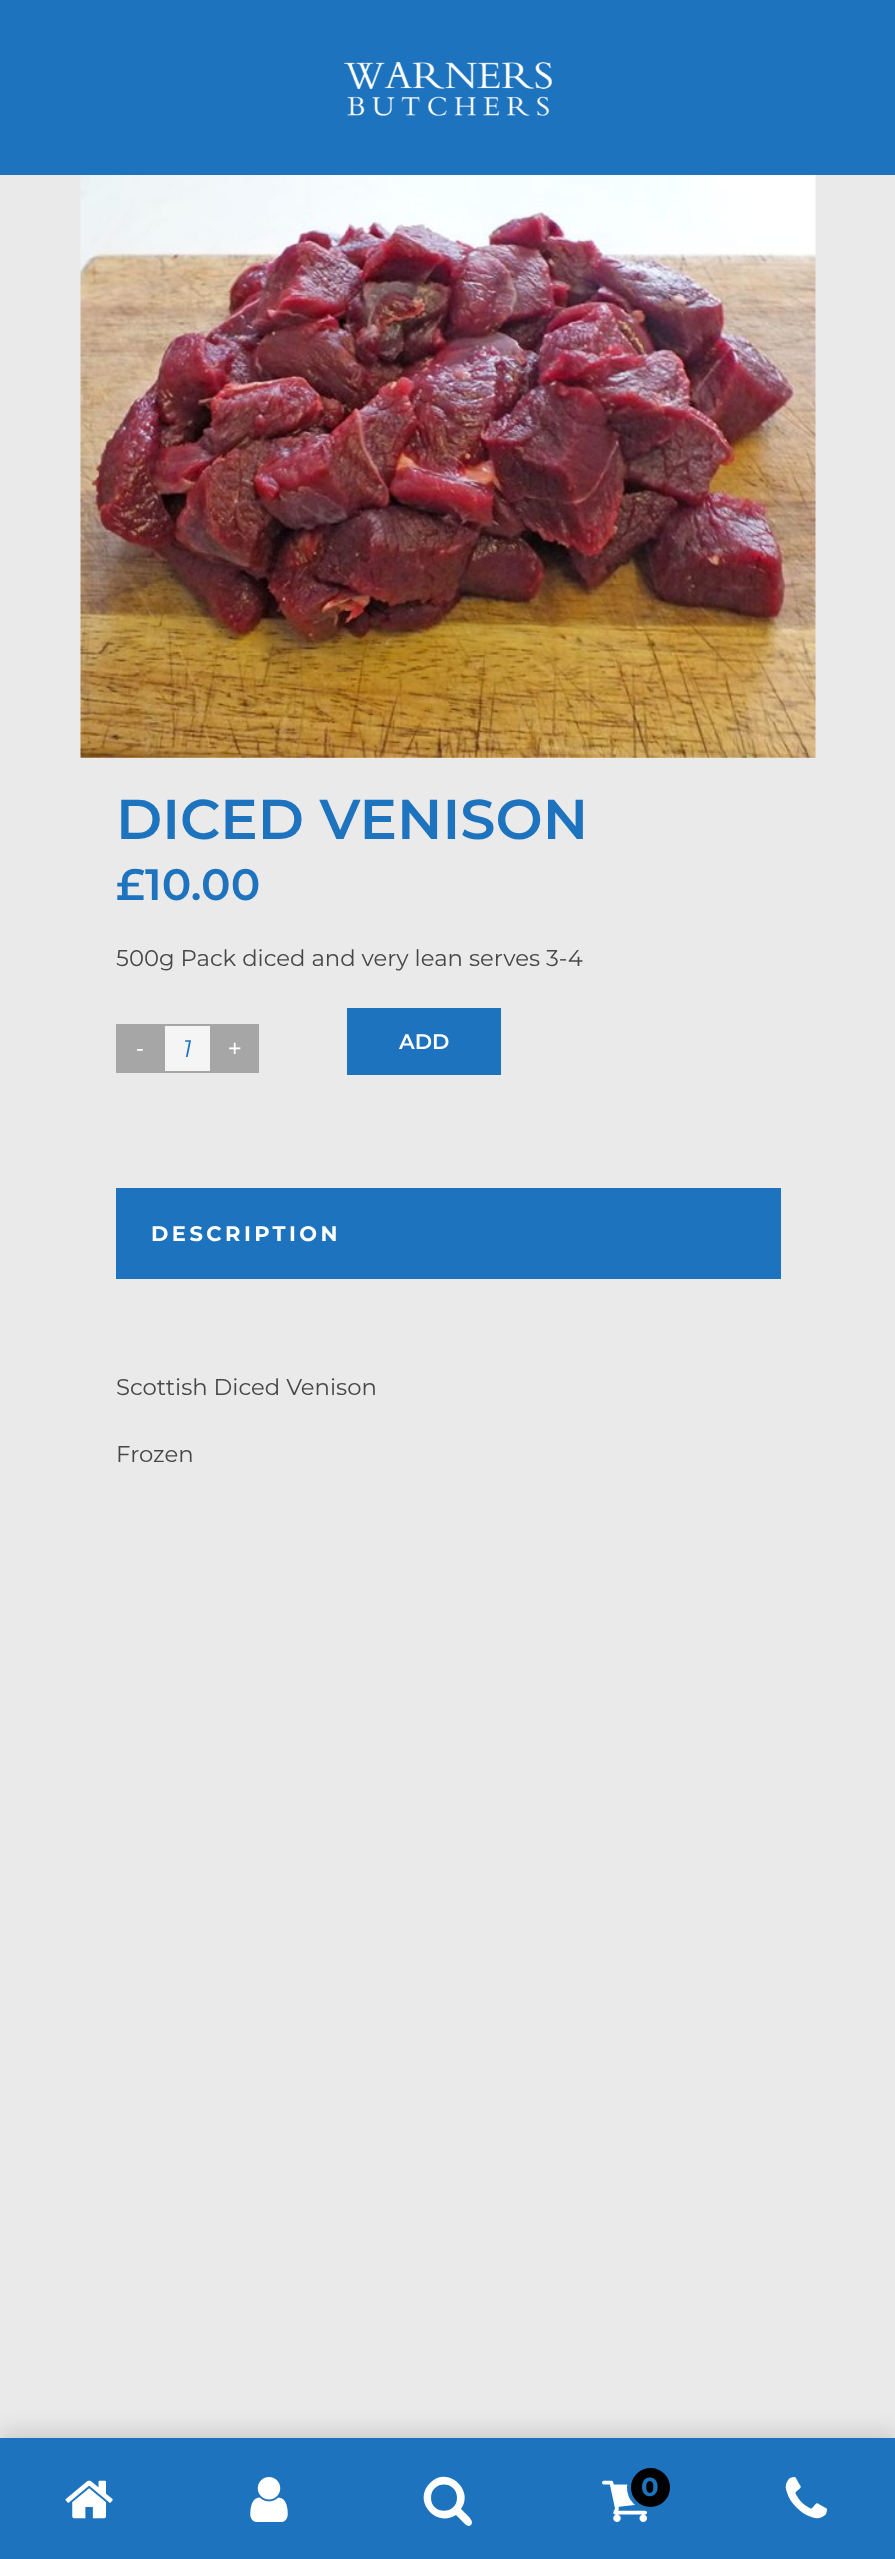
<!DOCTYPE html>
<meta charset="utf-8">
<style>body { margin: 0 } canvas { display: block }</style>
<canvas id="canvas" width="895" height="2559"></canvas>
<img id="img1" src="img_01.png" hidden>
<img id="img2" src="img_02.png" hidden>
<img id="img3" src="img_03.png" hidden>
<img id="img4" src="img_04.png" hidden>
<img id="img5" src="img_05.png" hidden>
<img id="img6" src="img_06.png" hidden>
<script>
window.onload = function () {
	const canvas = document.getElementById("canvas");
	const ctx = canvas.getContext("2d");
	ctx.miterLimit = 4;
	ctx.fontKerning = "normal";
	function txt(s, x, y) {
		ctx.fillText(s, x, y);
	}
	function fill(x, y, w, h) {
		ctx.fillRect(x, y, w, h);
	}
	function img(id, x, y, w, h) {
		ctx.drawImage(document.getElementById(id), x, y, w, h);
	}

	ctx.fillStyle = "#EAEAEA";
	fill(0, 0, 895, 2559);
	ctx.fillStyle = "#1E73BE";
	fill(0, 0, 895, 175);
	img("img1", 343, 62, 209, 54);
	img("img2", 80, 175, 736, 583);
	ctx.fillStyle = "#A6A6A6";
	fill(116, 1024, 143, 49);
	ctx.fillStyle = "#F5F5F5";
	fill(165, 1026, 45, 45);
	ctx.fillStyle = "#1E73BE";
	fill(347, 1008, 154, 67);
	fill(116, 1188, 665, 91);
	ctx.fillStyle = "rgba(0, 0, 0, 0.1)";
	ctx.filter = "blur(9px)";
	ctx.beginPath();
	ctx.rect(0, 2429, 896, 123);
	ctx.fill();
	ctx.filter = "none";
	ctx.fillStyle = "#1E73BE";
	fill(0, 2438, 895, 121);
	img("img3", 65, 2480, 48, 39);
	img("img4", 250, 2477, 38, 45);
	ctx.fillStyle = "#FFFFFF";
	ctx.beginPath();
	ctx.moveTo(457, 2498);
	ctx.bezierCurveTo(457, 2515, 431, 2515, 431, 2498);
	ctx.bezierCurveTo(431, 2480, 457, 2480, 457, 2498);
	ctx.closePath();
	ctx.moveTo(472, 2522);
	ctx.bezierCurveTo(472, 2519, 464, 2512, 461, 2509);
	ctx.bezierCurveTo(475, 2490, 447, 2465, 430, 2483);
	ctx.bezierCurveTo(412, 2501, 436, 2528, 456, 2515);
	ctx.lineTo(466, 2525);
	ctx.bezierCurveTo(467, 2525, 468, 2526, 468, 2526);
	ctx.bezierCurveTo(471, 2526, 472, 2524, 472, 2522);
	ctx.closePath();
	ctx.fill();
	img("img5", 602, 2480, 45, 42);
	ctx.fillStyle = "#000000";
	ctx.beginPath();
	ctx.arc(650.5, 2487.5, 21.5, 0, Math.PI * 2);
	ctx.fill();
	ctx.strokeStyle = "#1E73BE";
	ctx.lineWidth = 4;
	ctx.stroke();
	img("img6", 785, 2477, 42, 42);
	ctx.font = "600 56px Montserrat";
	ctx.fillStyle = "#1E73BE";
	txt("DICED VENISON", 116, 839);
	ctx.font = "600 44px Montserrat";
	txt("£", 116, 900);
	txt("10.00", 145, 900);
	ctx.font = "22.75px Montserrat";
	ctx.fillStyle = "#474747";
	txt("500g Pack diced and very lean serves 3-4", 116, 966);
	ctx.font = "23px Liberation Sans";
	ctx.fillStyle = "#FFFFFF";
	txt("-", 136, 1056);
	ctx.font = "italic 24px Montserrat";
	ctx.fillStyle = "#1E73BE";
	txt("1", 183, 1057);
	ctx.font = "23px Liberation Sans";
	ctx.fillStyle = "#FFFFFF";
	txt("+", 228, 1056);
	ctx.font = "600 21px Montserrat";
	txt("ADD", 399, 1049);
	ctx.letterSpacing = "3.5px";
	ctx.font = "bold 21px Montserrat";
	txt("DESCRIPTION", 151, 1241);
	ctx.letterSpacing = "0px";
	ctx.font = "22.75px Montserrat";
	ctx.fillStyle = "#474747";
	txt("Scottish Diced Venison", 116, 1395);
	txt("Frozen", 116, 1462);
	ctx.font = "bold 26px Montserrat";
	ctx.fillStyle = "#1E73BE";
	txt("0", 641, 2496);
};
</script>
